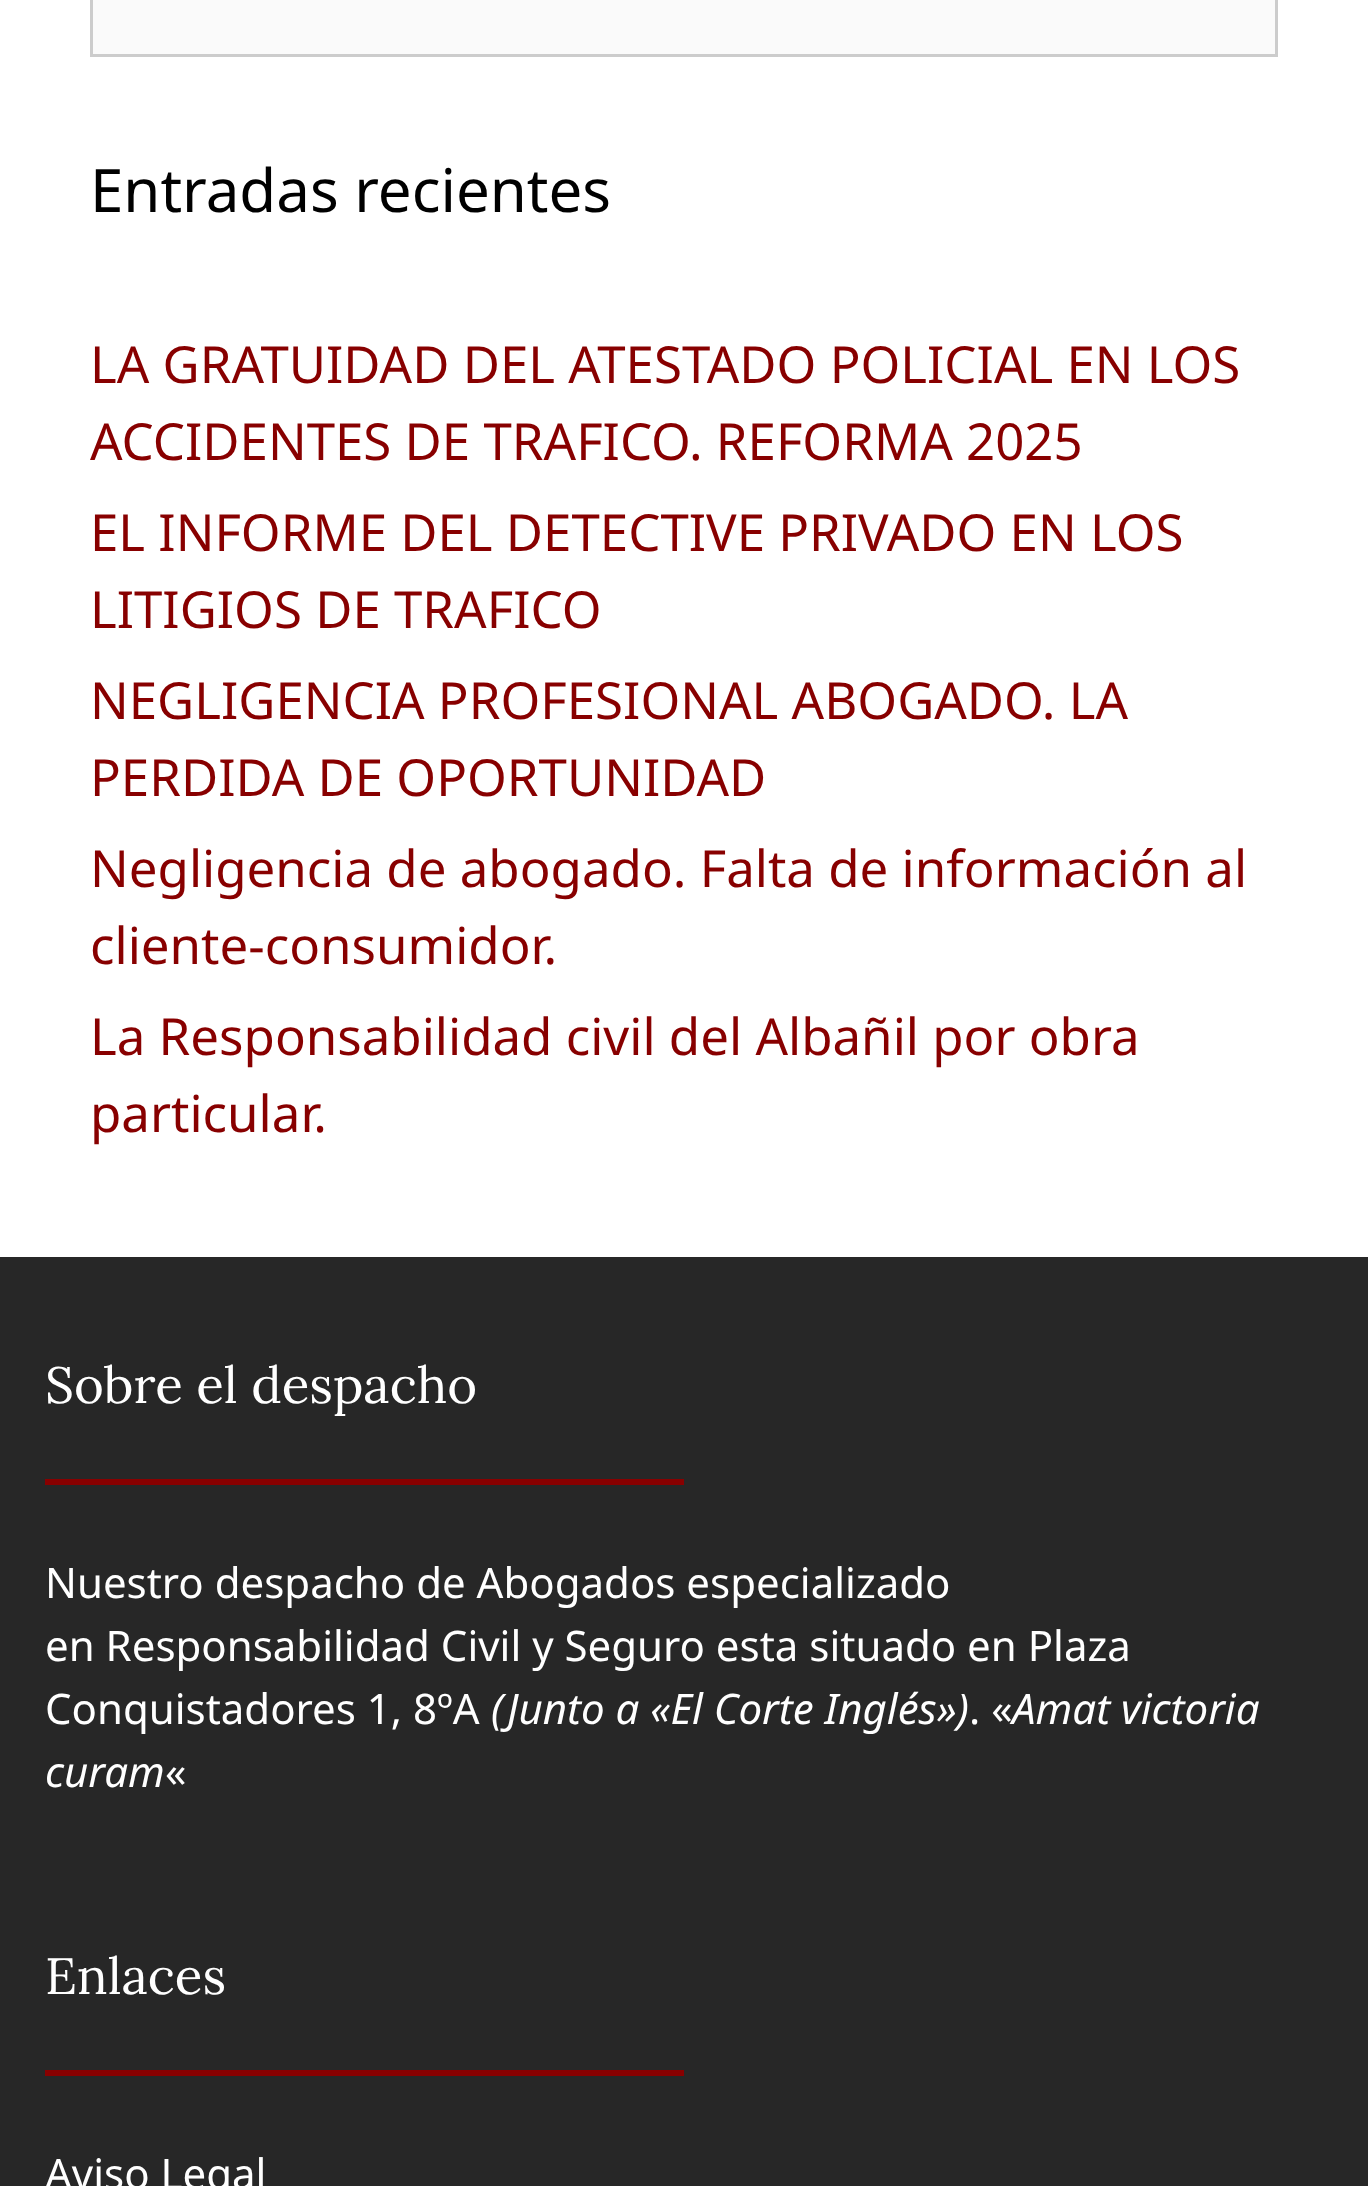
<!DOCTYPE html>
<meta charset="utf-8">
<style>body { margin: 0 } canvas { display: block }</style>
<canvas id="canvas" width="1368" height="2186"></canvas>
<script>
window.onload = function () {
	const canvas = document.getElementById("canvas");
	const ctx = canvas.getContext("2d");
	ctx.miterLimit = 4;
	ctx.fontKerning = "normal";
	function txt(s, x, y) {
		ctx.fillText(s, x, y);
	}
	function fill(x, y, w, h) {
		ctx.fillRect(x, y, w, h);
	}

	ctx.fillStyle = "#FFFFFF";
	fill(0, 0, 1368, 2186);
	ctx.fillStyle = "#FAFAFA";
	ctx.beginPath();
	ctx.rect(91.5, -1.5, 1185, 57);
	ctx.fill();
	ctx.strokeStyle = "#CCCCCC";
	ctx.lineWidth = 3;
	ctx.stroke();
	ctx.fillStyle = "#272727";
	fill(0, 1257, 1368, 929);
	ctx.fillStyle = "#880000";
	fill(45, 1479, 639, 6);
	fill(45, 2070, 639, 6);
	ctx.font = "60px Noto Sans";
	ctx.fillStyle = "#000000";
	txt("Entradas recientes", 90, 212);
	ctx.font = "51px Noto Sans";
	ctx.fillStyle = "#880000";
	txt("LA GRATUIDAD DEL ATESTADO POLICIAL EN LOS", 90, 383);
	txt("ACCIDENTES DE TRAFICO. REFORMA 2025", 90, 460);
	txt("EL INFORME DEL DETECTIVE PRIVADO EN LOS", 90, 551);
	txt("LITIGIOS DE TRAFICO", 90, 628);
	txt("NEGLIGENCIA PROFESIONAL ABOGADO. LA", 90, 719);
	txt("PERDIDA DE OPORTUNIDAD", 90, 796);
	txt("Negligencia de abogado. Falta de información al", 90, 887);
	txt("cliente-consumidor.", 90, 964);
	txt("La Responsabilidad civil del Albañil por obra", 90, 1055);
	txt("particular.", 90, 1132);
	ctx.font = "51px Lora";
	ctx.fillStyle = "#FFFFFF";
	txt("Sobre el despacho", 45, 1403);
	ctx.font = "42px Noto Sans";
	txt("Nuestro despacho de Abogados especializado", 45, 1598);
	txt("en Responsabilidad Civil y Seguro esta situado en Plaza", 45, 1661);
	txt("Conquistadores 1, 8ºA", 45, 1724);
	ctx.font = "italic 42px Noto Sans";
	txt("(Junto a «El Corte Inglés»)", 491, 1724);
	ctx.font = "42px Noto Sans";
	txt(". «", 969, 1724);
	ctx.font = "italic 42px Noto Sans";
	txt("Amat victoria", 1012, 1724);
	txt("curam", 45, 1787);
	ctx.font = "42px Noto Sans";
	txt("«", 165, 1787);
	ctx.font = "51px Lora";
	txt("Enlaces", 45, 1994);
	ctx.font = "42px Noto Sans";
	txt("Aviso Legal", 45, 2189);
};
</script>
